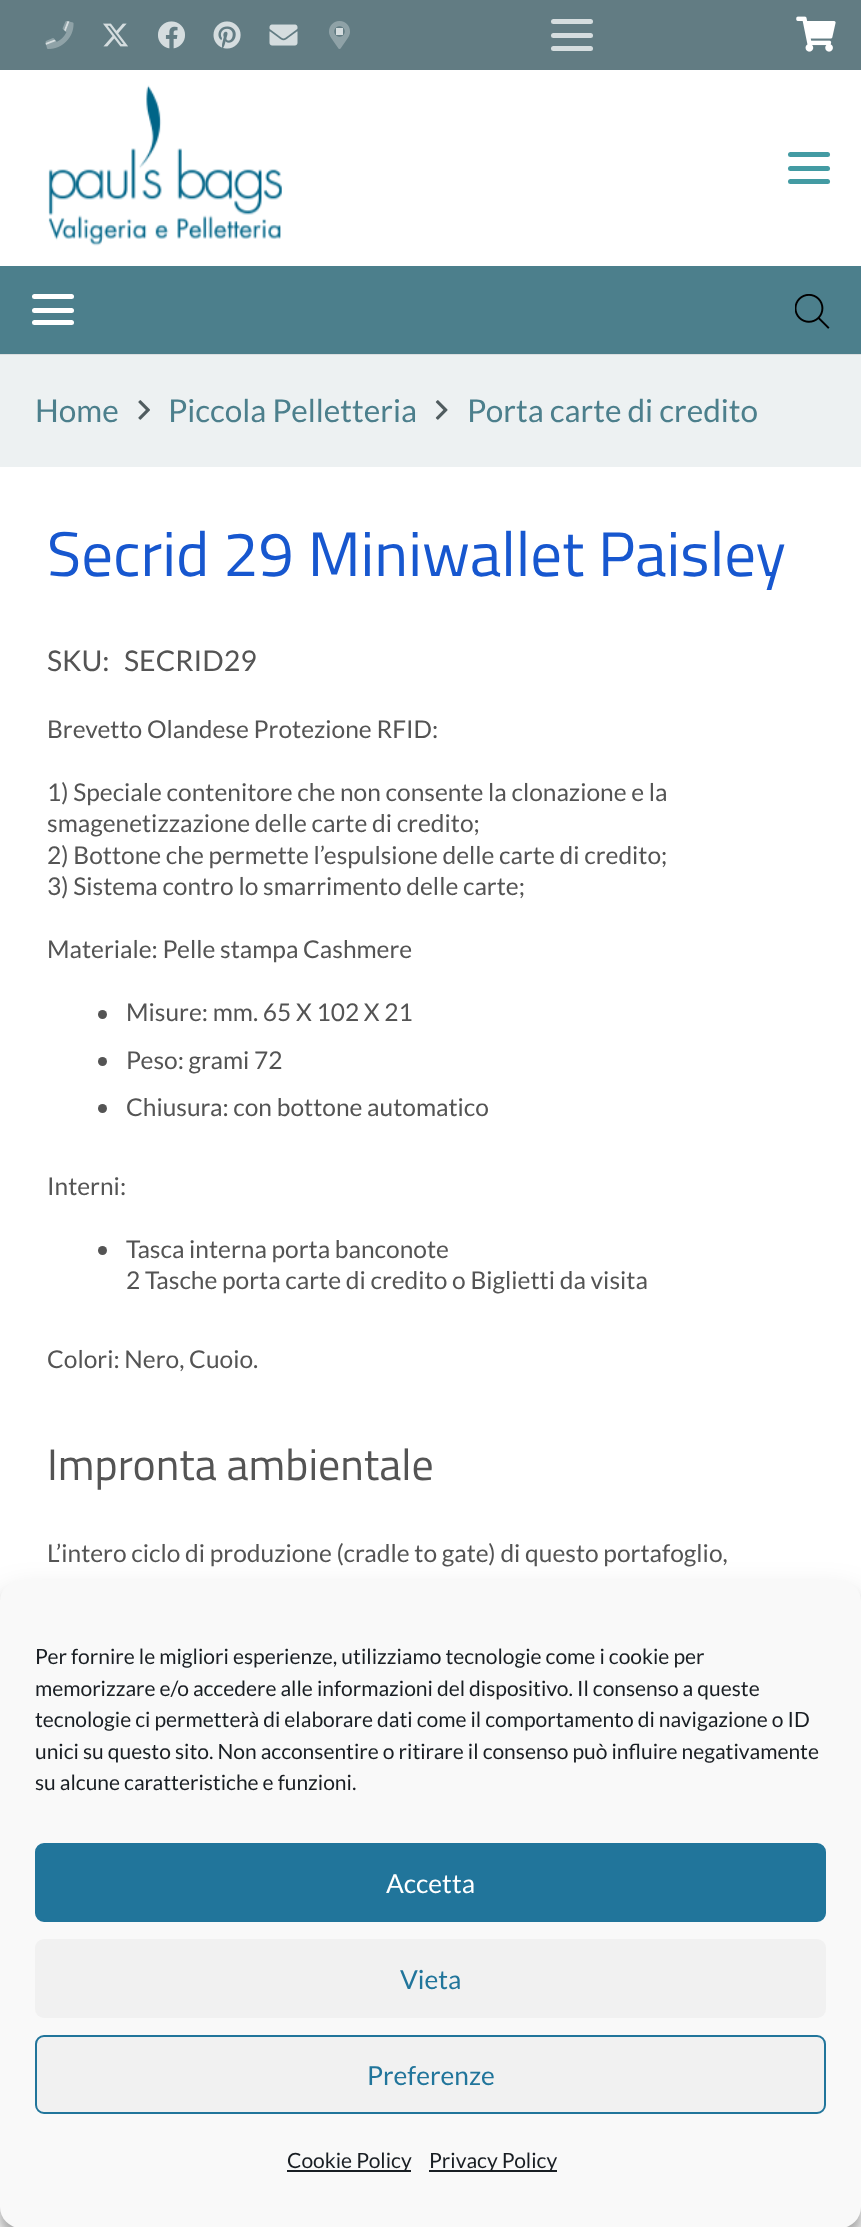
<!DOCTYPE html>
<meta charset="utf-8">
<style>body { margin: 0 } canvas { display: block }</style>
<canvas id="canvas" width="861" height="2227"></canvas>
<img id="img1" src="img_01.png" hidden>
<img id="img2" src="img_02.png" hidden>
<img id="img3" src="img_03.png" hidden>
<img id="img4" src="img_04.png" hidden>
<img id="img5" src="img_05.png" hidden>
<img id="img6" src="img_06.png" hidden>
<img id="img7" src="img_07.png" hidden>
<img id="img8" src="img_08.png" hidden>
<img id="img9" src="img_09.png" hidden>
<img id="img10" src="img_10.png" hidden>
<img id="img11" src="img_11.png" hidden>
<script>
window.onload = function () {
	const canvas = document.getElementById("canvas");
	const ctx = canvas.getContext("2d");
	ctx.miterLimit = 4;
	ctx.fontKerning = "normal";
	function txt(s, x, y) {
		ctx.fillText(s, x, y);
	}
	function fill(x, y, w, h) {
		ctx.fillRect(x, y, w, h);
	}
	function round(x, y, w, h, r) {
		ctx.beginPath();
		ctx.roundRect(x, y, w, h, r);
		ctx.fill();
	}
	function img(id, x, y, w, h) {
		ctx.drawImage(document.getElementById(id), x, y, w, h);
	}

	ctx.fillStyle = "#FFFFFF";
	fill(0, 0, 861, 2227);
	ctx.fillStyle = "#627C83";
	fill(0, 0, 861, 70);
	ctx.fillStyle = "#D5DDDF";
	ctx.beginPath();
	ctx.moveTo(67.5, 21);
	ctx.lineTo(69.5, 21.5);
	ctx.lineTo(65.5, 31.5);
	ctx.lineTo(64, 30);
	ctx.closePath();
	ctx.moveTo(45.5, 43);
	ctx.lineTo(54.5, 39.5);
	ctx.lineTo(56, 41);
	ctx.lineTo(46, 45);
	ctx.closePath();
	ctx.fill();
	img("img1", 45, 21, 29, 28);
	img("img2", 103, 23, 25, 24);
	img("img3", 158, 21, 27, 28);
	img("img4", 213, 21, 28, 28);
	img("img5", 269, 24, 29, 22);
	fill(336, 28, 7, 7);
	img("img6", 329, 21, 21, 28);
	round(551, 33, 42, 5, 2.5);
	round(551, 19, 42, 5, 2.5);
	round(551, 46, 42, 5, 2.5);
	img("img7", 796, 16, 40, 36);
	img("img8", 48, 85, 234, 161);
	ctx.fillStyle = "#439BA3";
	round(788, 166, 42, 5, 2.5);
	round(788, 152, 42, 5, 2.5);
	round(788, 179, 42, 5, 2.5);
	ctx.fillStyle = "#DADEDF";
	fill(0, 354, 861, 1);
	ctx.fillStyle = "#4C7F8C";
	fill(0, 266, 861, 88);
	ctx.fillStyle = "#FFFFFF";
	round(32, 308, 42, 5, 2.5);
	round(32, 294, 42, 5, 2.5);
	round(32, 320, 42, 5, 2.5);
	img("img9", 795, 294, 35, 35);
	ctx.fillStyle = "#EDF1F2";
	fill(0, 355, 861, 112);
	img("img10", 138, 400, 12, 20);
	img("img11", 435, 400, 13, 20);
	ctx.fillStyle = "#545454";
	ctx.beginPath();
	ctx.arc(102.5, 1014.5, 4.5, 0, Math.PI * 2);
	ctx.fill();
	ctx.beginPath();
	ctx.arc(102.5, 1061.5, 4.5, 0, Math.PI * 2);
	ctx.fill();
	ctx.beginPath();
	ctx.arc(102.5, 1108.5, 4.5, 0, Math.PI * 2);
	ctx.fill();
	ctx.beginPath();
	ctx.arc(102.5, 1250.5, 4.5, 0, Math.PI * 2);
	ctx.fill();
	ctx.fillStyle = "rgba(0, 0, 0, 0.23)";
	ctx.filter = "blur(5px)";
	ctx.beginPath();
	ctx.roundRect(0, 1591, 861, 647, 21);
	ctx.fill();
	ctx.filter = "none";
	ctx.fillStyle = "rgba(0, 0, 0, 0.19)";
	ctx.filter = "blur(17.5px)";
	ctx.beginPath();
	ctx.roundRect(0, 1598, 861, 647, 21);
	ctx.fill();
	ctx.filter = "none";
	ctx.fillStyle = "#F9F9F9";
	round(0, 1580, 861, 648, 21);
	ctx.fillStyle = "#21759B";
	ctx.beginPath();
	ctx.roundRect(36, 1844, 789, 77, 8);
	ctx.fill();
	ctx.strokeStyle = "#21759B";
	ctx.lineWidth = 2;
	ctx.stroke();
	ctx.fillStyle = "#F1F1F1";
	round(35, 1939, 791, 79, 9);
	ctx.beginPath();
	ctx.roundRect(36, 2036, 789, 77, 8);
	ctx.fill();
	ctx.stroke();
	ctx.fillStyle = "#191E23";
	fill(287, 2170, 124, 2);
	fill(429, 2170, 128, 2);
	ctx.font = "31.5px Lato";
	ctx.fillStyle = "#4C7F8C";
	txt("Home", 35, 422);
	txt("Piccola Pelletteria", 168, 422);
	txt("Porta carte di credito", 467, 422);
	ctx.font = "63px Titillium Web";
	ctx.fillStyle = "#1757CF";
	txt("Secrid 29 Miniwallet Paisley", 47, 576);
	ctx.font = "28.5px Lato";
	ctx.fillStyle = "#545454";
	txt("SKU:", 47, 671);
	txt("SECRID29", 124, 671);
	ctx.font = "24.5px Lato";
	txt("Brevetto Olandese Protezione RFID:", 47, 738);
	txt("1) Speciale contenitore che non consente la clonazione e la", 47, 801);
	txt("smagenetizzazione delle carte di credito;", 47, 832);
	txt("2) Bottone che permette l’espulsione delle carte di credito;", 47, 864);
	txt("3) Sistema contro lo smarrimento delle carte;", 47, 895);
	txt("Materiale: Pelle stampa Cashmere", 47, 958);
	txt("Misure: mm. 65 X 102 X 21", 126, 1021);
	txt("Peso: grami 72", 126, 1069);
	txt("Chiusura: con bottone automatico", 126, 1116);
	txt("Interni:", 47, 1195);
	txt("Tasca interna porta banconote", 126, 1258);
	txt("2 Tasche porta carte di credito o Biglietti da visita", 126, 1289);
	txt("Colori: Nero, Cuoio.", 47, 1368);
	ctx.font = "44px Titillium Web";
	txt("Impronta ambientale", 47, 1480);
	ctx.font = "24.5px Lato";
	txt("L’intero ciclo di produzione (cradle to gate) di questo portafoglio,", 47, 1562);
	ctx.font = "21px Lato";
	ctx.fillStyle = "#191E23";
	txt("Per fornire le migliori esperienze, utilizziamo tecnologie come i cookie per", 35, 1664);
	txt("memorizzare e/o accedere alle informazioni del dispositivo. Il consenso a queste", 35, 1696);
	txt("tecnologie ci permetterà di elaborare dati come il comportamento di navigazione o ID", 35, 1727);
	txt("unici su questo sito. Non acconsentire o ritirare il consenso può influire negativamente", 35, 1759);
	txt("su alcune caratteristiche e funzioni.", 35, 1790);
	ctx.font = "26.25px Lato";
	ctx.fillStyle = "#FFFFFF";
	txt("Accetta", 386, 1893);
	ctx.fillStyle = "#21759B";
	txt("Vieta", 400, 1989);
	txt("Preferenze", 367, 2085);
	ctx.font = "21px Lato";
	ctx.fillStyle = "#191E23";
	txt("Cookie Policy", 287, 2168);
	txt("Privacy Policy", 429, 2168);
};
</script>
